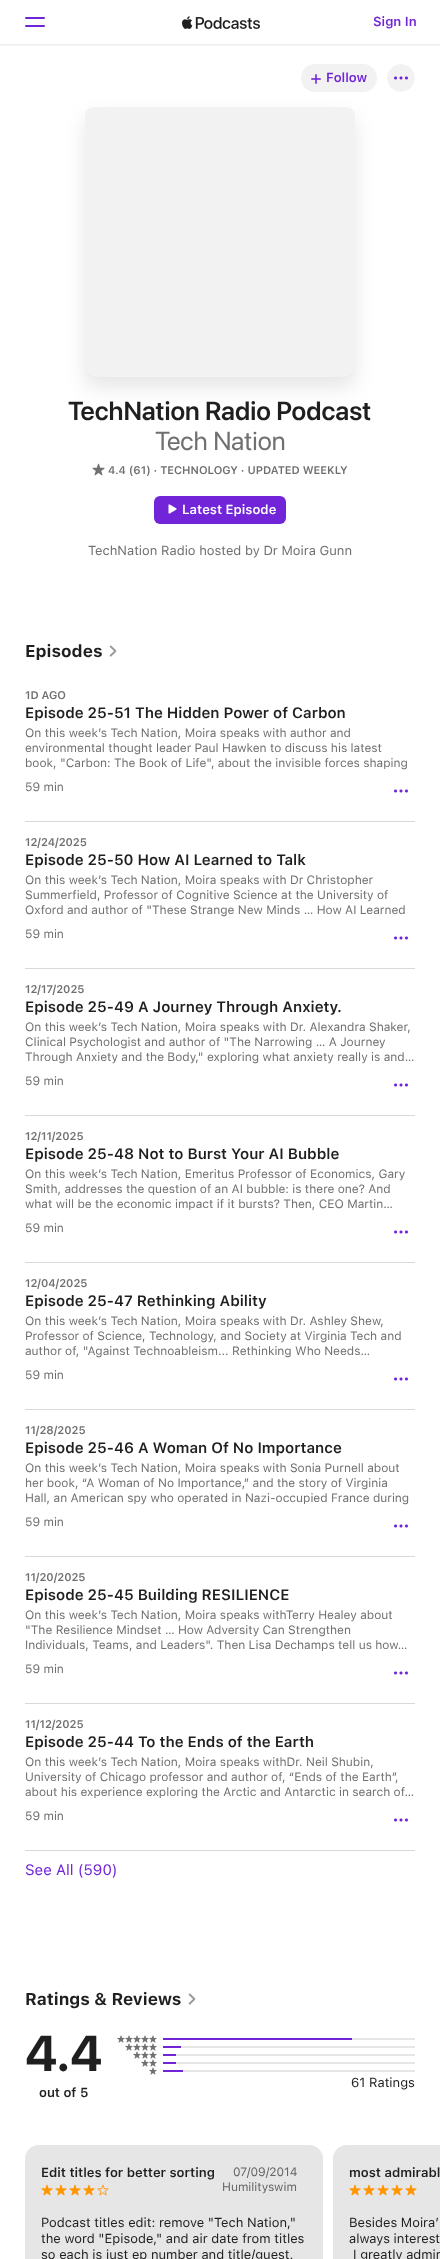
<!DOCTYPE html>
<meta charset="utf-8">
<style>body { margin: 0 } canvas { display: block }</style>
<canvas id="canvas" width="440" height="2259"></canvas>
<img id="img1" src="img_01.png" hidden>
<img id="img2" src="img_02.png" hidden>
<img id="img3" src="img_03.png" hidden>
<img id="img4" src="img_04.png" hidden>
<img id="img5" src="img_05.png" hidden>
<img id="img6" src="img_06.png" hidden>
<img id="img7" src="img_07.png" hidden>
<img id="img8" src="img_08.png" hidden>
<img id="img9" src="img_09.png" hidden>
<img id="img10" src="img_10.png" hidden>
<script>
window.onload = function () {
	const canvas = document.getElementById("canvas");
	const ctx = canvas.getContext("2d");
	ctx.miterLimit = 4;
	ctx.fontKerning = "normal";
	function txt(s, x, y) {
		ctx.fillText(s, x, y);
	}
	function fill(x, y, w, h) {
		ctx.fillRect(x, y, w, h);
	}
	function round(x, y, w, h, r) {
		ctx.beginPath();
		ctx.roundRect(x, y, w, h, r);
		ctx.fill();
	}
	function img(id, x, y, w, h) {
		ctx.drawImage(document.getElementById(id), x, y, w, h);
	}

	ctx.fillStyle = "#FFFFFF";
	fill(0, 0, 440, 2259);
	ctx.save();
	ctx.beginPath();
	ctx.rect(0, 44, 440, 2);
	ctx.clip();
	ctx.fillStyle = "rgba(0, 0, 0, 0.1)";
	ctx.filter = "blur(1px)";
	ctx.beginPath();
	ctx.rect(0, 1, 440, 44);
	ctx.fill();
	ctx.filter = "none";
	ctx.restore();
	ctx.fillStyle = "#7224D8";
	round(25, 17, 20, 2, 1);
	round(25, 25, 20, 2, 1);
	img("img1", 182, 16, 78, 13);
	ctx.fillStyle = "#F2F2F2";
	round(301, 64, 76, 28, 14);
	img("img2", 311, 74, 10, 10);
	img("img3", 387, 64, 28, 28);
	ctx.fillStyle = "rgba(0, 0, 0, 0.1)";
	ctx.filter = "blur(10px)";
	ctx.beginPath();
	ctx.roundRect(85, 117, 270, 270, 10);
	ctx.fill();
	ctx.filter = "none";
	ctx.fillStyle = "#FFFFFF";
	round(85, 107, 270, 270, 10);
	ctx.fillStyle = "rgba(128, 128, 128, 0.1)";
	ctx.beginPath();
	ctx.moveTo(95, 107);
	ctx.lineTo(345, 107);
	ctx.bezierCurveTo(351, 107, 355, 111, 355, 117);
	ctx.lineTo(355, 367);
	ctx.bezierCurveTo(355, 373, 351, 377, 345, 377);
	ctx.lineTo(95, 377);
	ctx.bezierCurveTo(89, 377, 85, 373, 85, 367);
	ctx.lineTo(85, 117);
	ctx.bezierCurveTo(85, 111, 89, 107, 95, 107);
	ctx.closePath();
	ctx.fill();
	img("img4", 92, 463, 13, 13);
	ctx.fillStyle = "#7224D8";
	round(154, 496, 132, 28, 6);
	img("img5", 168, 504, 9, 10);
	img("img6", 109, 645, 8, 12);
	ctx.fillStyle = "#D9D9D9";
	fill(25, 821, 390, 1);
	img("img7", 394, 789, 14, 4);
	fill(25, 968, 390, 1);
	img("img7", 394, 936, 14, 4);
	fill(25, 1115, 390, 1);
	img("img7", 394, 1083, 14, 4);
	fill(25, 1262, 390, 1);
	img("img7", 394, 1230, 14, 4);
	fill(25, 1409, 390, 1);
	img("img7", 394, 1377, 14, 4);
	fill(25, 1556, 390, 1);
	img("img7", 394, 1524, 14, 4);
	fill(25, 1703, 390, 1);
	img("img7", 394, 1671, 14, 4);
	fill(25, 1850, 390, 1);
	img("img7", 394, 1818, 14, 4);
	img("img6", 188, 1993, 8, 12);
	img("img8", 117, 2035, 8, 8);
	img("img8", 125, 2035, 8, 8);
	img("img8", 133, 2035, 8, 8);
	img("img8", 141, 2035, 8, 8);
	img("img8", 149, 2035, 8, 8);
	ctx.fillStyle = "#E6E6E6";
	fill(352, 2038, 63, 2);
	ctx.fillStyle = "#7224D8";
	fill(163, 2038, 189, 2);
	img("img8", 125, 2043, 8, 8);
	img("img8", 133, 2043, 8, 8);
	img("img8", 141, 2043, 8, 8);
	img("img8", 149, 2043, 8, 8);
	ctx.fillStyle = "#E6E6E6";
	fill(181, 2046, 234, 2);
	ctx.fillStyle = "#7224D8";
	fill(163, 2046, 18, 2);
	img("img8", 133, 2051, 8, 8);
	img("img8", 141, 2051, 8, 8);
	img("img8", 149, 2051, 8, 8);
	ctx.fillStyle = "#E6E6E6";
	fill(176, 2054, 239, 2);
	ctx.fillStyle = "#7224D8";
	fill(163, 2054, 13, 2);
	img("img8", 141, 2059, 8, 8);
	img("img8", 149, 2059, 8, 8);
	ctx.fillStyle = "#E6E6E6";
	fill(176, 2062, 239, 2);
	ctx.fillStyle = "#7224D8";
	fill(163, 2062, 13, 2);
	img("img8", 149, 2067, 8, 8);
	ctx.fillStyle = "#E6E6E6";
	fill(183, 2070, 232, 2);
	ctx.fillStyle = "#7224D8";
	fill(163, 2070, 20, 2);
	ctx.fillStyle = "#E6E6E6";
	ctx.beginPath();
	ctx.roundRect(25, 2145, 298, 114, [14, 14, 0, 0]);
	ctx.fill();
	img("img9", 41, 2184, 12, 12);
	img("img9", 55, 2184, 12, 12);
	img("img9", 69, 2184, 12, 12);
	img("img9", 83, 2184, 12, 12);
	img("img10", 97, 2184, 12, 12);
	ctx.beginPath();
	ctx.roundRect(333, 2145, 107, 114, [14, 0, 0, 0]);
	ctx.fill();
	img("img9", 349, 2184, 12, 12);
	img("img9", 363, 2184, 12, 12);
	img("img9", 377, 2184, 12, 12);
	img("img9", 391, 2184, 12, 12);
	img("img9", 405, 2184, 12, 12);
	ctx.font = "600 13px SF";
	ctx.fillStyle = "#7224D8";
	txt("Sign In", 373, 26);
	txt("Follow", 326, 82);
	ctx.font = "600 26px 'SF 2'";
	ctx.fillStyle = "#1F1F1F";
	txt("TechNation Radio Podcast", 68, 420);
	ctx.font = "26px SF";
	ctx.fillStyle = "#707070";
	txt("Tech Nation", 155, 450);
	ctx.font = "600 11px SF";
	txt("4.4 (61) · TECHNOLOGY · UPDATED WEEKLY", 108, 474);
	ctx.font = "600 13px SF";
	ctx.fillStyle = "#FFFFFF";
	txt("Latest Episode", 182, 514);
	ctx.font = "13px 'SF 2'";
	ctx.fillStyle = "#707070";
	txt("TechNation Radio hosted by Dr Moira Gunn", 88, 555);
	ctx.font = "bold 17px SF";
	ctx.fillStyle = "#1F1F1F";
	txt("Episodes", 25, 657);
	ctx.font = "600 11px SF";
	ctx.fillStyle = "#707070";
	txt("1D AGO", 25, 699);
	ctx.font = "600 15px SF";
	ctx.fillStyle = "#1F1F1F";
	txt("Episode 25-51 The Hidden Power of Carbon", 25, 718);
	ctx.font = "12px 'SF 2'";
	ctx.fillStyle = "#707070";
	txt("On this week’s Tech Nation, Moira speaks with author and", 25, 737);
	txt("environmental thought leader Paul Hawken to discuss his latest", 25, 752);
	txt("book, \"Carbon: The Book of Life\", about the invisible forces shaping", 25, 767);
	txt("59 min", 25, 791);
	ctx.font = "600 11px SF";
	txt("12/24/2025", 25, 846);
	ctx.font = "600 15px SF";
	ctx.fillStyle = "#1F1F1F";
	txt("Episode 25-50 How AI Learned to Talk", 25, 865);
	ctx.font = "12px 'SF 2'";
	ctx.fillStyle = "#707070";
	txt("On this week’s Tech Nation, Moira speaks with Dr Christopher", 25, 884);
	txt("Summerfield, Professor of Cognitive Science at the University of", 25, 899);
	txt("Oxford and author of \"These Strange New Minds … How AI Learned", 25, 914);
	txt("59 min", 25, 938);
	ctx.font = "600 11px SF";
	txt("12/17/2025", 25, 993);
	ctx.font = "600 15px SF";
	ctx.fillStyle = "#1F1F1F";
	txt("Episode 25-49 A Journey Through Anxiety.", 25, 1012);
	ctx.font = "12px 'SF 2'";
	ctx.fillStyle = "#707070";
	txt("On this week’s Tech Nation, Moira speaks with Dr. Alexandra Shaker,", 25, 1031);
	txt("Clinical Psychologist and author of \"The Narrowing … A Journey", 25, 1046);
	txt("Through Anxiety and the Body,\" exploring what anxiety really is and…", 25, 1061);
	txt("59 min", 25, 1085);
	ctx.font = "600 11px SF";
	txt("12/11/2025", 25, 1140);
	ctx.font = "600 15px SF";
	ctx.fillStyle = "#1F1F1F";
	txt("Episode 25-48 Not to Burst Your AI Bubble", 25, 1159);
	ctx.font = "12px 'SF 2'";
	ctx.fillStyle = "#707070";
	txt("On this week’s Tech Nation, Emeritus Professor of Economics, Gary", 25, 1178);
	txt("Smith, addresses the question of an AI bubble: is there one? And", 25, 1193);
	txt("what will be the economic impact if it bursts? Then, CEO Martin…", 25, 1208);
	txt("59 min", 25, 1232);
	ctx.font = "600 11px SF";
	txt("12/04/2025", 25, 1287);
	ctx.font = "600 15px SF";
	ctx.fillStyle = "#1F1F1F";
	txt("Episode 25-47 Rethinking Ability", 25, 1306);
	ctx.font = "12px 'SF 2'";
	ctx.fillStyle = "#707070";
	txt("On this week’s Tech Nation, Moira speaks with Dr. Ashley Shew,", 25, 1325);
	txt("Professor of Science, Technology, and Society at Virginia Tech and", 25, 1340);
	txt("author of, \"Against Technoableism... Rethinking Who Needs…", 25, 1355);
	txt("59 min", 25, 1379);
	ctx.font = "600 11px SF";
	txt("11/28/2025", 25, 1434);
	ctx.font = "600 15px SF";
	ctx.fillStyle = "#1F1F1F";
	txt("Episode 25-46 A Woman Of No Importance", 25, 1453);
	ctx.font = "12px 'SF 2'";
	ctx.fillStyle = "#707070";
	txt("On this week’s Tech Nation, Moira speaks with Sonia Purnell about", 25, 1472);
	txt("her book, “A Woman of No Importance,” and the story of Virginia", 25, 1487);
	txt("Hall, an American spy who operated in Nazi-occupied France during", 25, 1502);
	txt("59 min", 25, 1526);
	ctx.font = "600 11px SF";
	txt("11/20/2025", 25, 1581);
	ctx.font = "600 15px SF";
	ctx.fillStyle = "#1F1F1F";
	txt("Episode 25-45 Building RESILIENCE", 25, 1600);
	ctx.font = "12px 'SF 2'";
	ctx.fillStyle = "#707070";
	txt("On this week’s Tech Nation, Moira speaks withTerry Healey about", 25, 1619);
	txt("\"The Resilience Mindset … How Adversity Can Strengthen", 25, 1634);
	txt("Individuals, Teams, and Leaders\". Then Lisa Dechamps tell us how…", 25, 1649);
	txt("59 min", 25, 1673);
	ctx.font = "600 11px SF";
	txt("11/12/2025", 25, 1728);
	ctx.font = "600 15px SF";
	ctx.fillStyle = "#1F1F1F";
	txt("Episode 25-44 To the Ends of the Earth", 25, 1747);
	ctx.font = "12px 'SF 2'";
	ctx.fillStyle = "#707070";
	txt("On this week’s Tech Nation, Moira speaks withDr. Neil Shubin,", 25, 1766);
	txt("University of Chicago professor and author of, “Ends of the Earth”,", 25, 1781);
	txt("about his experience exploring the Arctic and Antarctic in search of…", 25, 1796);
	txt("59 min", 25, 1820);
	ctx.font = "15px 'SF 2'";
	ctx.fillStyle = "#7224D8";
	txt("See All (590)", 25, 1875);
	ctx.font = "bold 17px SF";
	ctx.fillStyle = "#1F1F1F";
	txt("Ratings & Reviews", 25, 2005);
	ctx.font = "bold 50px 'SF 2'";
	txt("4.4", 25, 2071);
	ctx.font = "600 13px SF";
	txt("out of 5", 39, 2097);
	ctx.font = "13px 'SF 2'";
	txt("61 Ratings", 351, 2087);
	ctx.font = "600 13px SF";
	txt("Edit titles for better sorting", 41, 2177);
	ctx.font = "12px 'SF 2'";
	ctx.fillStyle = "#656565";
	txt("07/09/2014", 233, 2176);
	txt("Humilityswim", 222, 2191);
	ctx.font = "13px 'SF 2'";
	ctx.fillStyle = "#1F1F1F";
	txt("Podcast titles edit: remove \"Tech Nation,\"", 41, 2227);
	txt("the word \"Episode,\" and air date from titles", 41, 2243);
	txt("so each is just ep number and title/guest.", 41, 2259);
	ctx.font = "600 13px SF";
	txt("most admirabl", 349, 2177);
	ctx.font = "13px 'SF 2'";
	txt("Besides Moira’", 349, 2227);
	txt("always interest", 349, 2243);
	txt("I greatly admir", 353, 2259);
};
</script>
